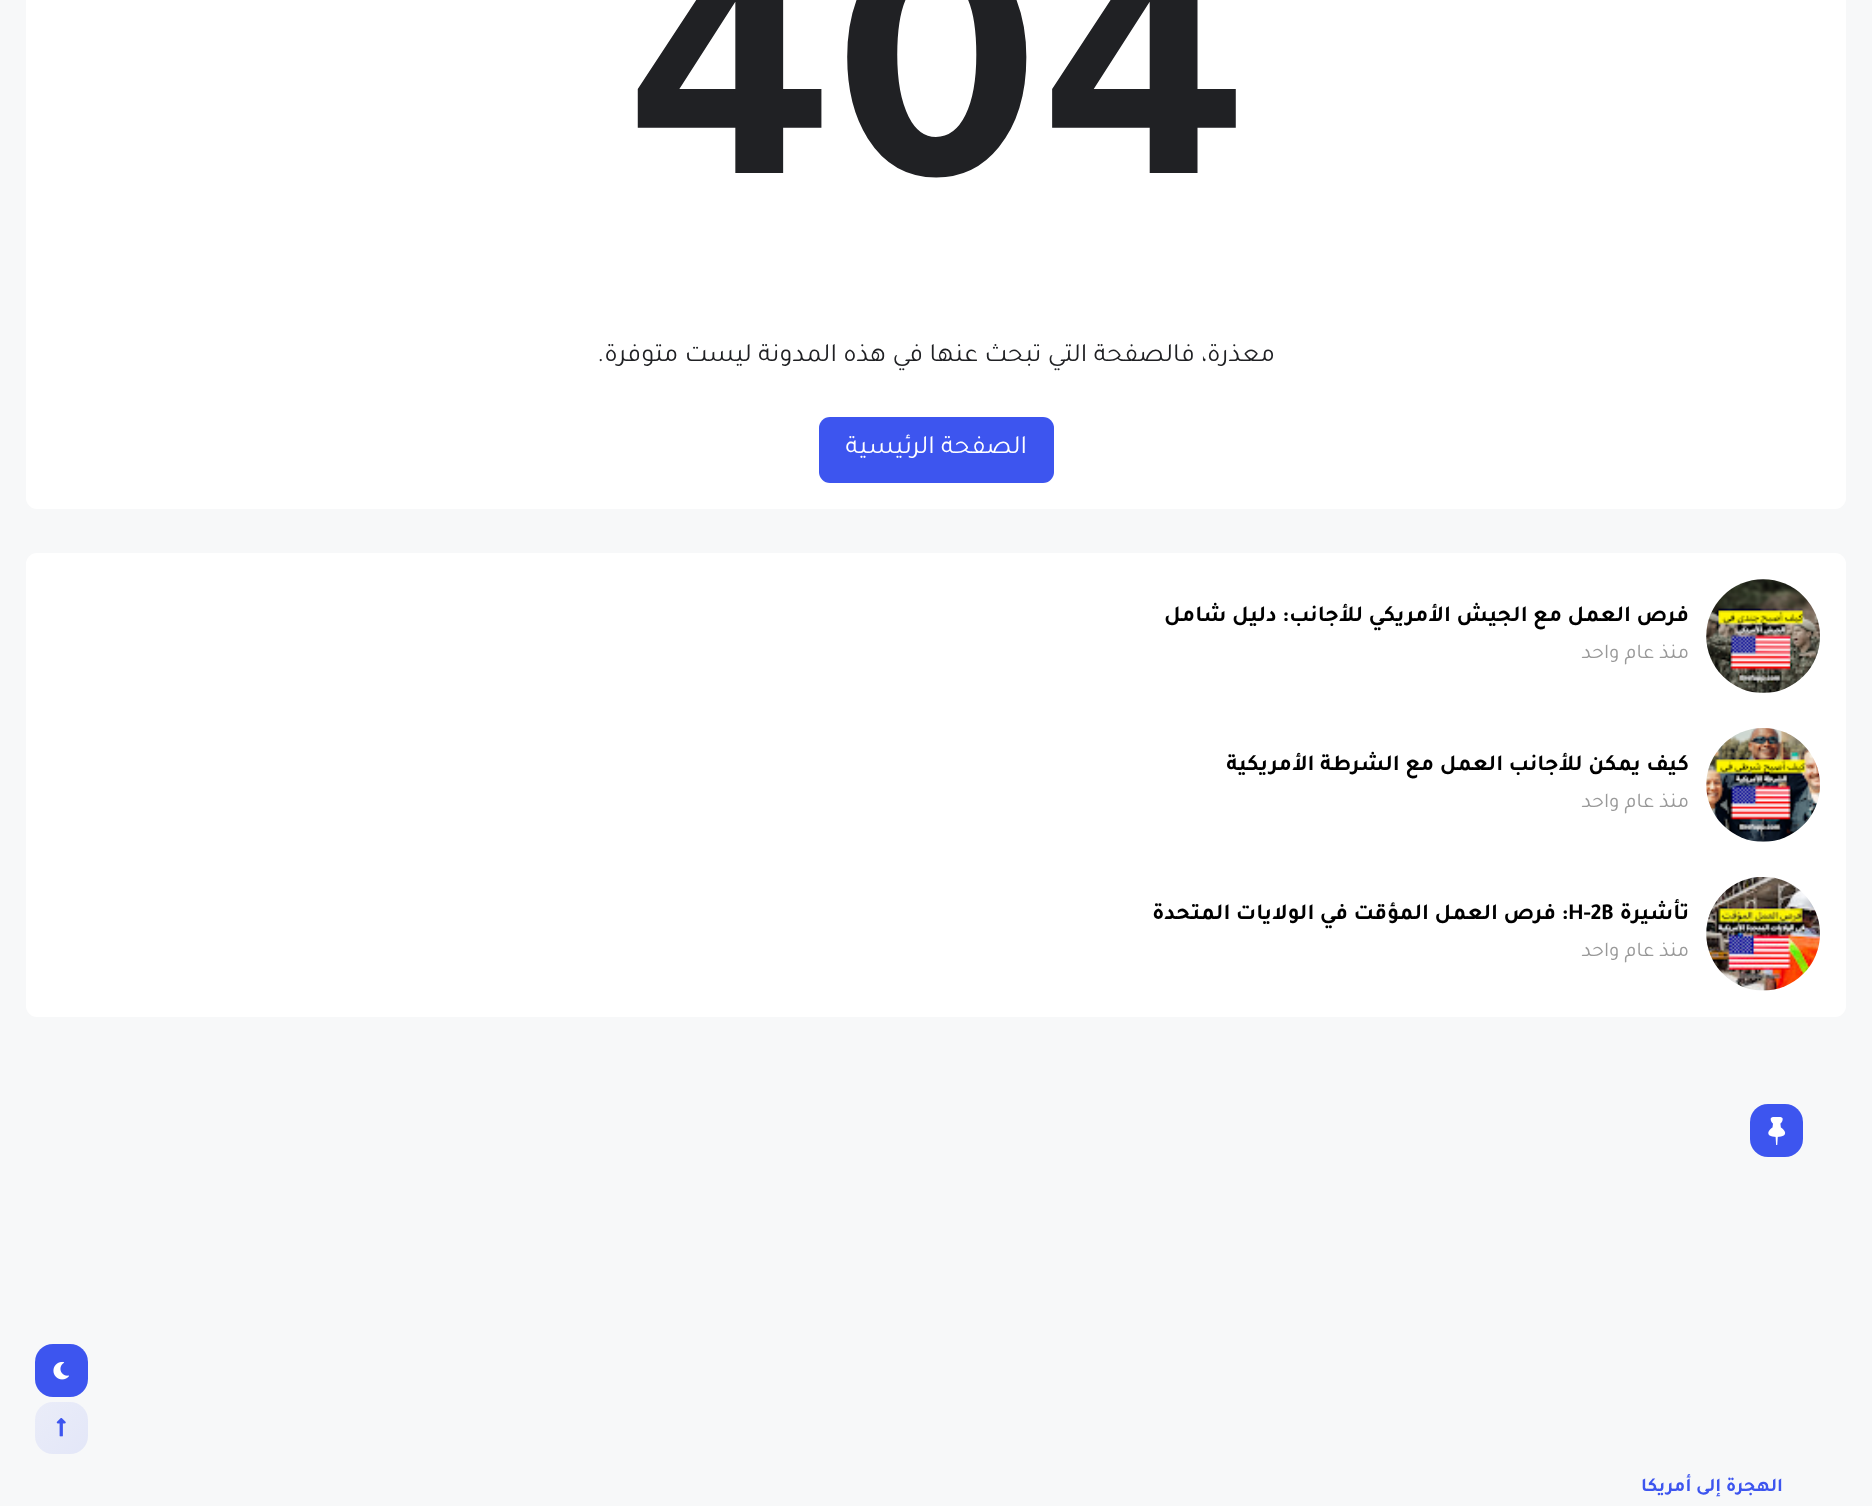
<!DOCTYPE html>
<meta charset="utf-8">
<style>body { margin: 0 } canvas { display: block }</style>
<canvas id="canvas" width="1872" height="1506"></canvas>
<img id="img1" src="img_01.png" hidden>
<img id="img2" src="img_02.png" hidden>
<img id="img3" src="img_03.png" hidden>
<img id="img4" src="img_04.png" hidden>
<img id="img5" src="img_05.png" hidden>
<img id="img6" src="img_06.png" hidden>
<script>
window.onload = function () {
	const canvas = document.getElementById("canvas");
	const ctx = canvas.getContext("2d");
	ctx.miterLimit = 4;
	ctx.fontKerning = "normal";
	function txt(s, x, y) {
		ctx.fillText(s, x, y);
	}
	function fill(x, y, w, h) {
		ctx.fillRect(x, y, w, h);
	}
	function round(x, y, w, h, r) {
		ctx.beginPath();
		ctx.roundRect(x, y, w, h, r);
		ctx.fill();
	}
	function img(id, x, y, w, h) {
		ctx.drawImage(document.getElementById(id), x, y, w, h);
	}
	let gradient;

	ctx.fillStyle = "#F7F8F9";
	fill(0, 0, 1872, 1506);
	ctx.fillStyle = "#FFFFFF";
	round(26, -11, 1820, 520, 11);
	ctx.fillStyle = "#3D55EF";
	round(819, 417, 235, 66, 11);
	ctx.fillStyle = "#FFFFFF";
	round(26, 553, 1820, 464, 11);
	img("img1", 1706, 579, 114, 114);
	img("img2", 1706, 728, 114, 114);
	img("img3", 1706, 877, 114, 114);
	ctx.fillStyle = "#3D55EF";
	round(1750, 1104, 53, 53, 18);
	img("img4", 1768, 1117, 18, 28);
	round(35, 1344, 53, 53, 18);
	img("img5", 53, 1361, 16, 19);
	gradient = ctx.createLinearGradient(1400, 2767, -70, 1297);
	gradient.addColorStop(0, "#3D55EF");
	gradient.addColorStop(1, "#F7F8F9");
	ctx.fillStyle = gradient;
	round(35, 1402, 53, 52, 18);
	img("img6", 56, 1418, 10, 19);
	ctx.font = "bold 368px Tajawal";
	ctx.fillStyle = "#202124";
	txt("404", 626, 173);
	ctx.direction = "rtl";
	ctx.font = "26.25px Tajawal";
	txt("معذرة، فالصفحة التي تبحث عنها في هذه المدونة ليست متوفرة.", 1275, 361);
	ctx.fillStyle = "#FFFFFF";
	txt("الصفحة الرئيسية", 1027, 453);
	ctx.font = "bold 22.75px Tajawal";
	ctx.fillStyle = "#000000";
	txt("فرص العمل مع الجيش الأمريكي للأجانب: دليل شامل", 1689, 621);
	ctx.font = "21px Tajawal";
	ctx.fillStyle = "#999999";
	txt("منذ عام واحد", 1689, 658);
	ctx.font = "bold 22.75px Tajawal";
	ctx.fillStyle = "#000000";
	txt("كيف يمكن للأجانب العمل مع الشرطة الأمريكية", 1689, 770);
	ctx.font = "21px Tajawal";
	ctx.fillStyle = "#999999";
	txt("منذ عام واحد", 1689, 807);
	ctx.font = "bold 22.75px Tajawal";
	ctx.fillStyle = "#000000";
	txt("تأشيرة", 1689, 919);
	ctx.direction = "ltr";
	txt("H-2B", 1568, 919);
	ctx.direction = "rtl";
	txt(": فرص العمل المؤقت في الولايات المتحدة", 1568, 919);
	ctx.font = "21px Tajawal";
	ctx.fillStyle = "#999999";
	txt("منذ عام واحد", 1689, 956);
	ctx.font = "bold 19.25px Tajawal";
	ctx.fillStyle = "#3D55EF";
	txt("الهجرة إلى أمريكا", 1783, 1491);
};
</script>
